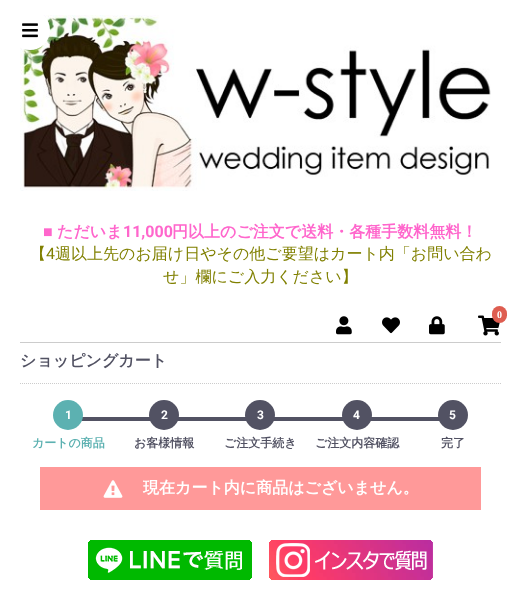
<!DOCTYPE html>
<meta charset="utf-8">
<style>body { margin: 0 } canvas { display: block }</style>
<canvas id="canvas" width="521" height="606"></canvas>
<img id="img1" src="img_01.png" hidden>
<img id="img2" src="img_02.png" hidden>
<img id="img3" src="img_03.png" hidden>
<img id="img4" src="img_04.png" hidden>
<img id="img5" src="img_05.png" hidden>
<img id="img6" src="img_06.png" hidden>
<img id="img7" src="img_07.png" hidden>
<img id="img8" src="img_08.png" hidden>
<img id="img9" src="img_09.png" hidden>
<script>
window.onload = function () {
	const canvas = document.getElementById("canvas");
	const ctx = canvas.getContext("2d");
	ctx.miterLimit = 4;
	ctx.fontKerning = "normal";
	function txt(s, x, y) {
		ctx.fillText(s, x, y);
	}
	function fill(x, y, w, h) {
		ctx.fillRect(x, y, w, h);
	}
	function round(x, y, w, h, r) {
		ctx.beginPath();
		ctx.roundRect(x, y, w, h, r);
		ctx.fill();
	}
	function img(id, x, y, w, h) {
		ctx.drawImage(document.getElementById(id), x, y, w, h);
	}

	ctx.fillStyle = "#FFFFFF";
	fill(0, 0, 521, 606);
	img("img1", 20, 15, 471, 176);
	ctx.beginPath();
	ctx.arc(30, 30, 20, 0, Math.PI * 2);
	ctx.fill();
	img("img2", 22, 23, 16, 15);
	img("img3", 478, 315, 22, 21);
	ctx.fillStyle = "#DE5D50";
	round(492, 306, 15, 17, 7.5);
	img("img4", 336, 316, 16, 19);
	img("img5", 382, 317, 18, 17);
	img("img6", 429, 316, 16, 19);
	ctx.fillStyle = "#CCCCCC";
	fill(20, 342, 481, 1);
	ctx.beginPath();
	ctx.moveTo(20, 383.5);
	ctx.lineTo(501, 383.5);
	ctx.strokeStyle = "#CCCCCC";
	ctx.setLineDash([1, 1]);
	ctx.stroke();
	ctx.fillStyle = "#525263";
	fill(81, 417, 70, 4);
	ctx.fillStyle = "#5CB1B1";
	ctx.beginPath();
	ctx.arc(68, 415, 15, 0, Math.PI * 2);
	ctx.fill();
	ctx.fillStyle = "#525263";
	fill(177, 417, 70, 4);
	ctx.beginPath();
	ctx.arc(164, 415, 15, 0, Math.PI * 2);
	ctx.fill();
	fill(273, 417, 71, 4);
	ctx.beginPath();
	ctx.arc(260, 415, 15, 0, Math.PI * 2);
	ctx.fill();
	fill(370, 417, 70, 4);
	ctx.beginPath();
	ctx.arc(357, 415, 15, 0, Math.PI * 2);
	ctx.fill();
	ctx.beginPath();
	ctx.arc(453, 415, 15, 0, Math.PI * 2);
	ctx.fill();
	ctx.fillStyle = "#FF9999";
	fill(40, 467, 441, 43);
	img("img7", 103, 480, 20, 18);
	img("img8", 88, 540, 164, 40);
	img("img9", 269, 540, 164, 40);
	ctx.font = "bold 16px Liberation Sans";
	ctx.fillStyle = "#FF66CC";
	txt("■", 43, 237);
	ctx.font = "bold 16px WenQuanYi Zen Hei";
	txt("ただいま", 57, 237);
	ctx.font = "bold 16px Roboto";
	txt("11,000", 123, 237);
	ctx.font = "bold 16px WenQuanYi Zen Hei";
	txt("円以上のご注文で送料・各種手数料無料！", 172, 237);
	ctx.font = "500 16px WenQuanYi Zen Hei";
	ctx.fillStyle = "#808000";
	txt("【", 30, 259);
	ctx.font = "16px Roboto";
	txt("4", 46, 259);
	ctx.font = "500 16px WenQuanYi Zen Hei";
	txt("週以上先のお届け日やその他ご要望はカート内「お問い合わ", 55, 259);
	txt("せ」欄にご入力ください】", 163, 282);
	ctx.font = "bold 10px Liberation Serif";
	ctx.fillStyle = "#FFFFFF";
	txt("0", 497, 318);
	ctx.font = "bold 16px WenQuanYi Zen Hei";
	ctx.fillStyle = "#525263";
	txt("ショッピングカート", 20, 366);
	ctx.font = "bold 12px Roboto";
	ctx.fillStyle = "#FFFFFF";
	txt("1", 65, 419);
	ctx.font = "bold 12px WenQuanYi Zen Hei";
	ctx.fillStyle = "#5CB1B1";
	txt("カートの商品", 32, 447);
	ctx.font = "bold 12px Roboto";
	ctx.fillStyle = "#FFFFFF";
	txt("2", 161, 419);
	ctx.font = "bold 12px WenQuanYi Zen Hei";
	ctx.fillStyle = "#525263";
	txt("お客様情報", 134, 447);
	ctx.font = "bold 12px Roboto";
	ctx.fillStyle = "#FFFFFF";
	txt("3", 257, 419);
	ctx.font = "bold 12px WenQuanYi Zen Hei";
	ctx.fillStyle = "#525263";
	txt("ご注文手続き", 224, 447);
	ctx.font = "bold 12px Roboto";
	ctx.fillStyle = "#FFFFFF";
	txt("4", 353, 419);
	ctx.font = "bold 12px WenQuanYi Zen Hei";
	ctx.fillStyle = "#525263";
	txt("ご注文内容確認", 315, 447);
	ctx.font = "bold 12px Roboto";
	ctx.fillStyle = "#FFFFFF";
	txt("5", 449, 419);
	ctx.font = "bold 12px WenQuanYi Zen Hei";
	ctx.fillStyle = "#525263";
	txt("完了", 441, 447);
	ctx.font = "bold 16px WenQuanYi Zen Hei";
	ctx.fillStyle = "#FFFFFF";
	txt("現在カート内に商品はございません。", 143, 493);
};
</script>
